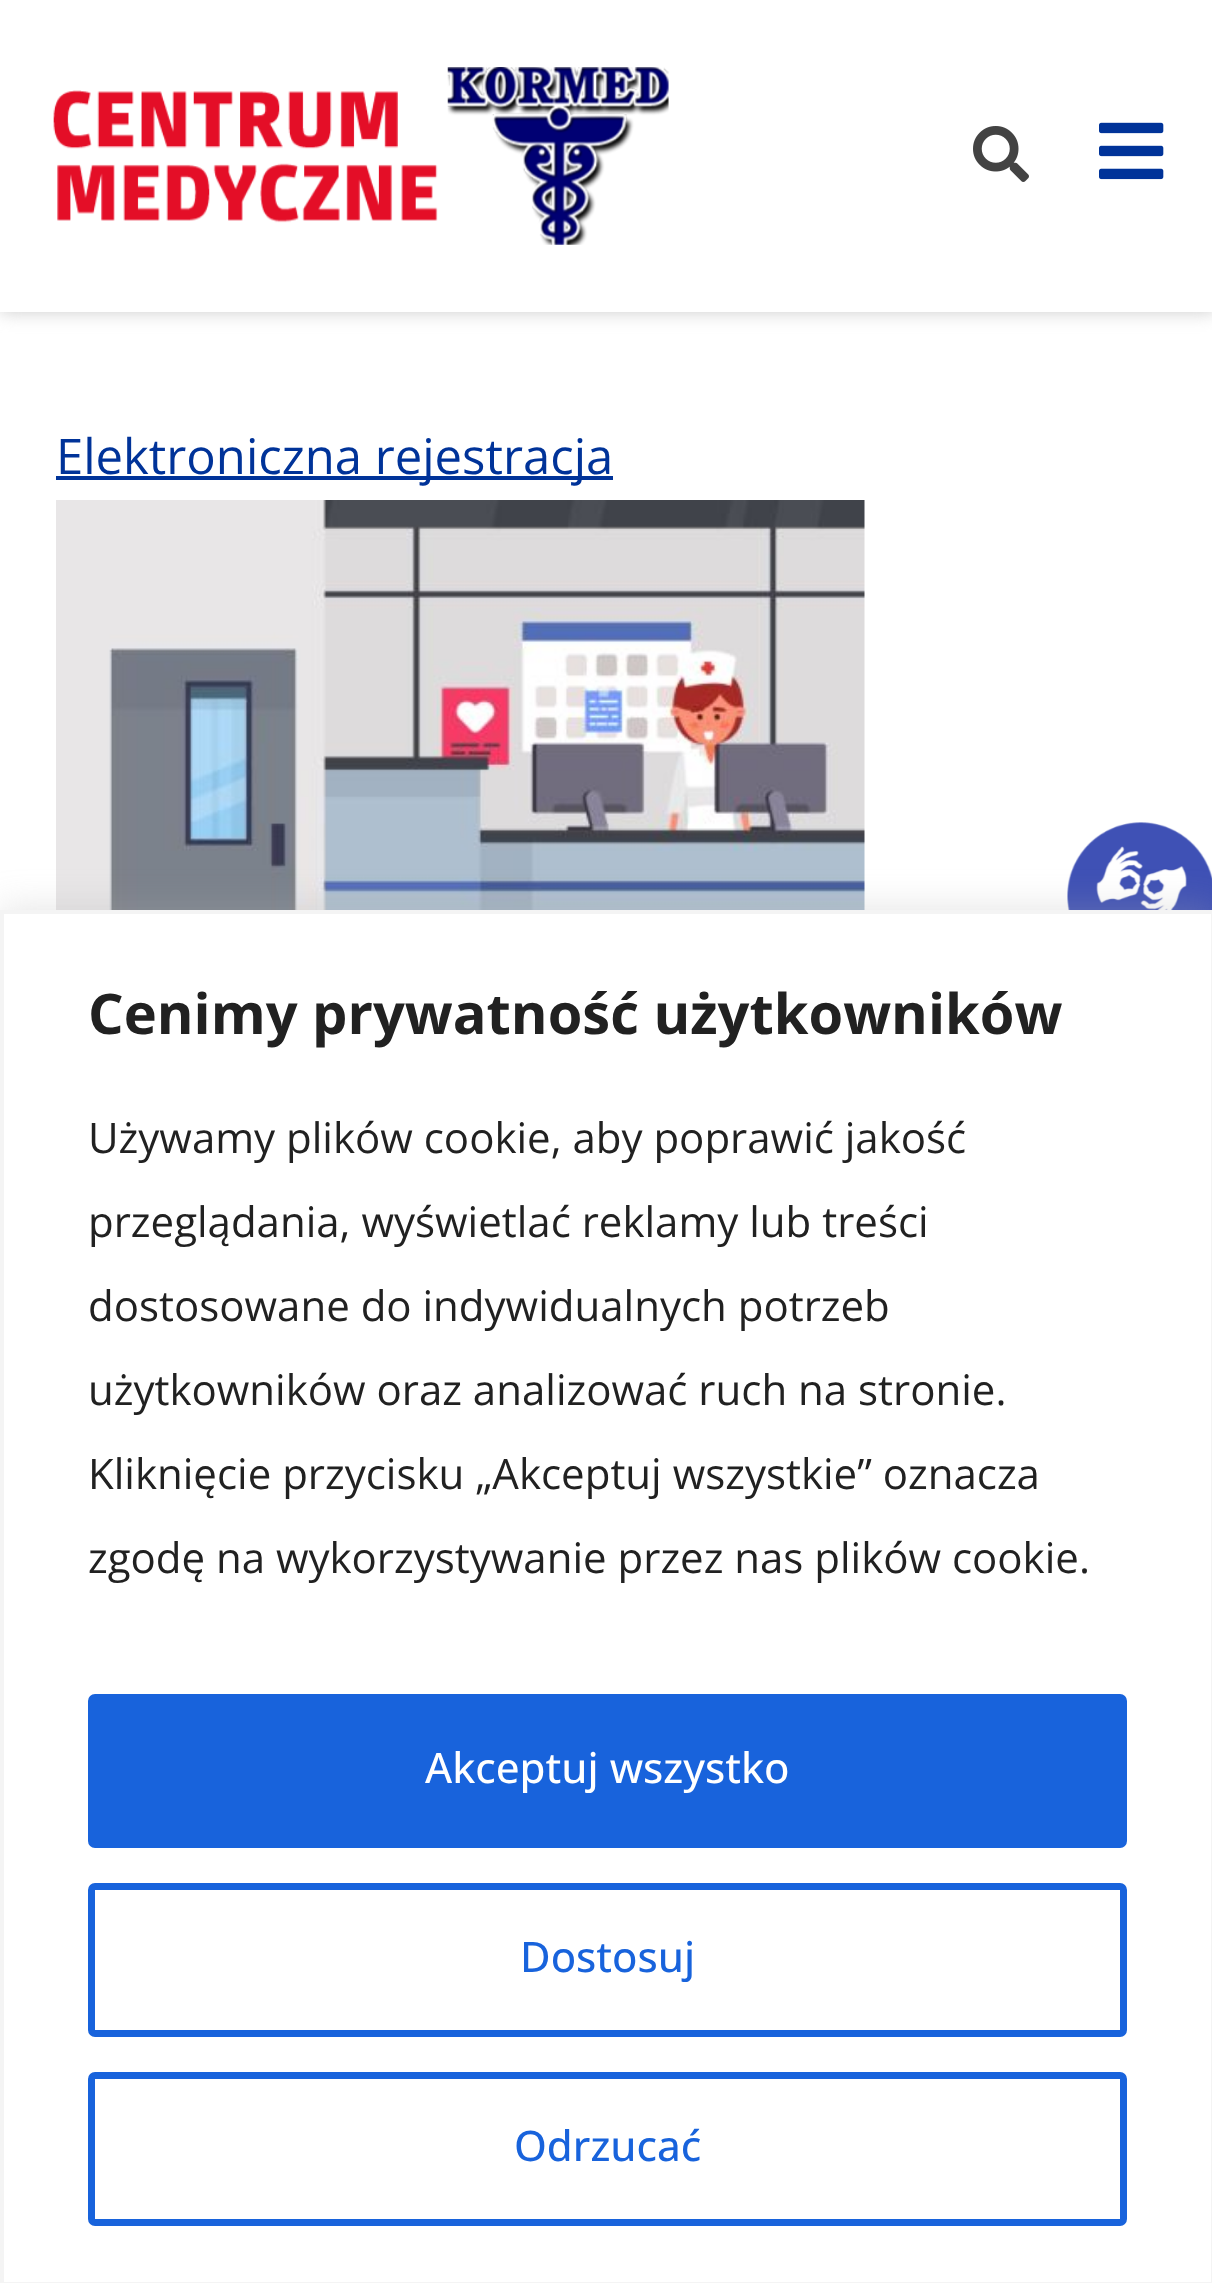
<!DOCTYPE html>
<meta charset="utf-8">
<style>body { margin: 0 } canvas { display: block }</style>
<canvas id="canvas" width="1212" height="2283"></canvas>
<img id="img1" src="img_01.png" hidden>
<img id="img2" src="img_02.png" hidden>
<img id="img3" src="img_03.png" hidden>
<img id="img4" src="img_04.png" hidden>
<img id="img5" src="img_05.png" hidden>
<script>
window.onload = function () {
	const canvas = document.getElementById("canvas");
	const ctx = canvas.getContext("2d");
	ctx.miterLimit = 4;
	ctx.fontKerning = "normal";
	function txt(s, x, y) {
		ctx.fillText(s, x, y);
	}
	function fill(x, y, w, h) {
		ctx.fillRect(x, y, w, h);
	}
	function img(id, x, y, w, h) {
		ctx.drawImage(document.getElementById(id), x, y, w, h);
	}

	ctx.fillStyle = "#FFFFFF";
	fill(0, 0, 1212, 2283);
	ctx.fillStyle = "#CCCCCC";
	ctx.filter = "blur(9px)";
	ctx.beginPath();
	ctx.rect(0, 0, 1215, 312);
	ctx.fill();
	ctx.filter = "none";
	ctx.fillStyle = "#FFFFFF";
	fill(0, 0, 1212, 312);
	img("img1", 53, 67, 616, 178);
	img("img2", 973, 126, 56, 56);
	img("img3", 1099, 122, 65, 58);
	ctx.fillStyle = "#003399";
	fill(56, 476, 557, 4);
	img("img4", 56, 500, 809, 410);
	img("img5", 1067, 822, 145, 88);
	ctx.fillStyle = "rgba(172, 171, 171, 0.3)";
	ctx.filter = "blur(17.5px)";
	ctx.beginPath();
	ctx.rect(0, 907, 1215, 1375);
	ctx.fill();
	ctx.filter = "none";
	ctx.fillStyle = "#FFFFFF";
	ctx.beginPath();
	ctx.rect(2, 912, 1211, 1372);
	ctx.fill();
	ctx.strokeStyle = "#F4F4F4";
	ctx.lineWidth = 4;
	ctx.stroke();
	ctx.fillStyle = "#1863DC";
	ctx.beginPath();
	ctx.roundRect(91.5, 1697.5, 1032, 147, 3.5);
	ctx.fill();
	ctx.strokeStyle = "#1863DC";
	ctx.lineWidth = 7;
	ctx.stroke();
	ctx.beginPath();
	ctx.roundRect(91.5, 1886.5, 1032, 147, 3.5);
	ctx.stroke();
	ctx.beginPath();
	ctx.roundRect(91.5, 2075.5, 1032, 147, 3.5);
	ctx.stroke();
	ctx.font = "49px Open Sans";
	ctx.fillStyle = "#003399";
	txt("Elektroniczna rejestracja", 56, 474);
	ctx.font = "bold 56px Open Sans";
	ctx.fillStyle = "#212121";
	txt("Cenimy prywatność użytkowników", 88, 1034);
	ctx.font = "42px Open Sans";
	txt("Używamy plików cookie, aby poprawić jakość", 88, 1153);
	txt("przeglądania, wyświetlać reklamy lub treści", 88, 1237);
	txt("dostosowane do indywidualnych potrzeb", 88, 1321);
	txt("użytkowników oraz analizować ruch na stronie.", 88, 1405);
	txt("Kliknięcie przycisku „Akceptuj wszystkie” oznacza", 88, 1489);
	txt("zgodę na wykorzystywanie przez nas plików cookie.", 88, 1573);
	ctx.font = "500 42px Open Sans";
	ctx.fillStyle = "#FFFFFF";
	txt("Akceptuj wszystko", 425, 1783);
	ctx.fillStyle = "#1863DC";
	txt("Dostosuj", 520, 1972);
	txt("Odrzucać", 514, 2161);
};
</script>
